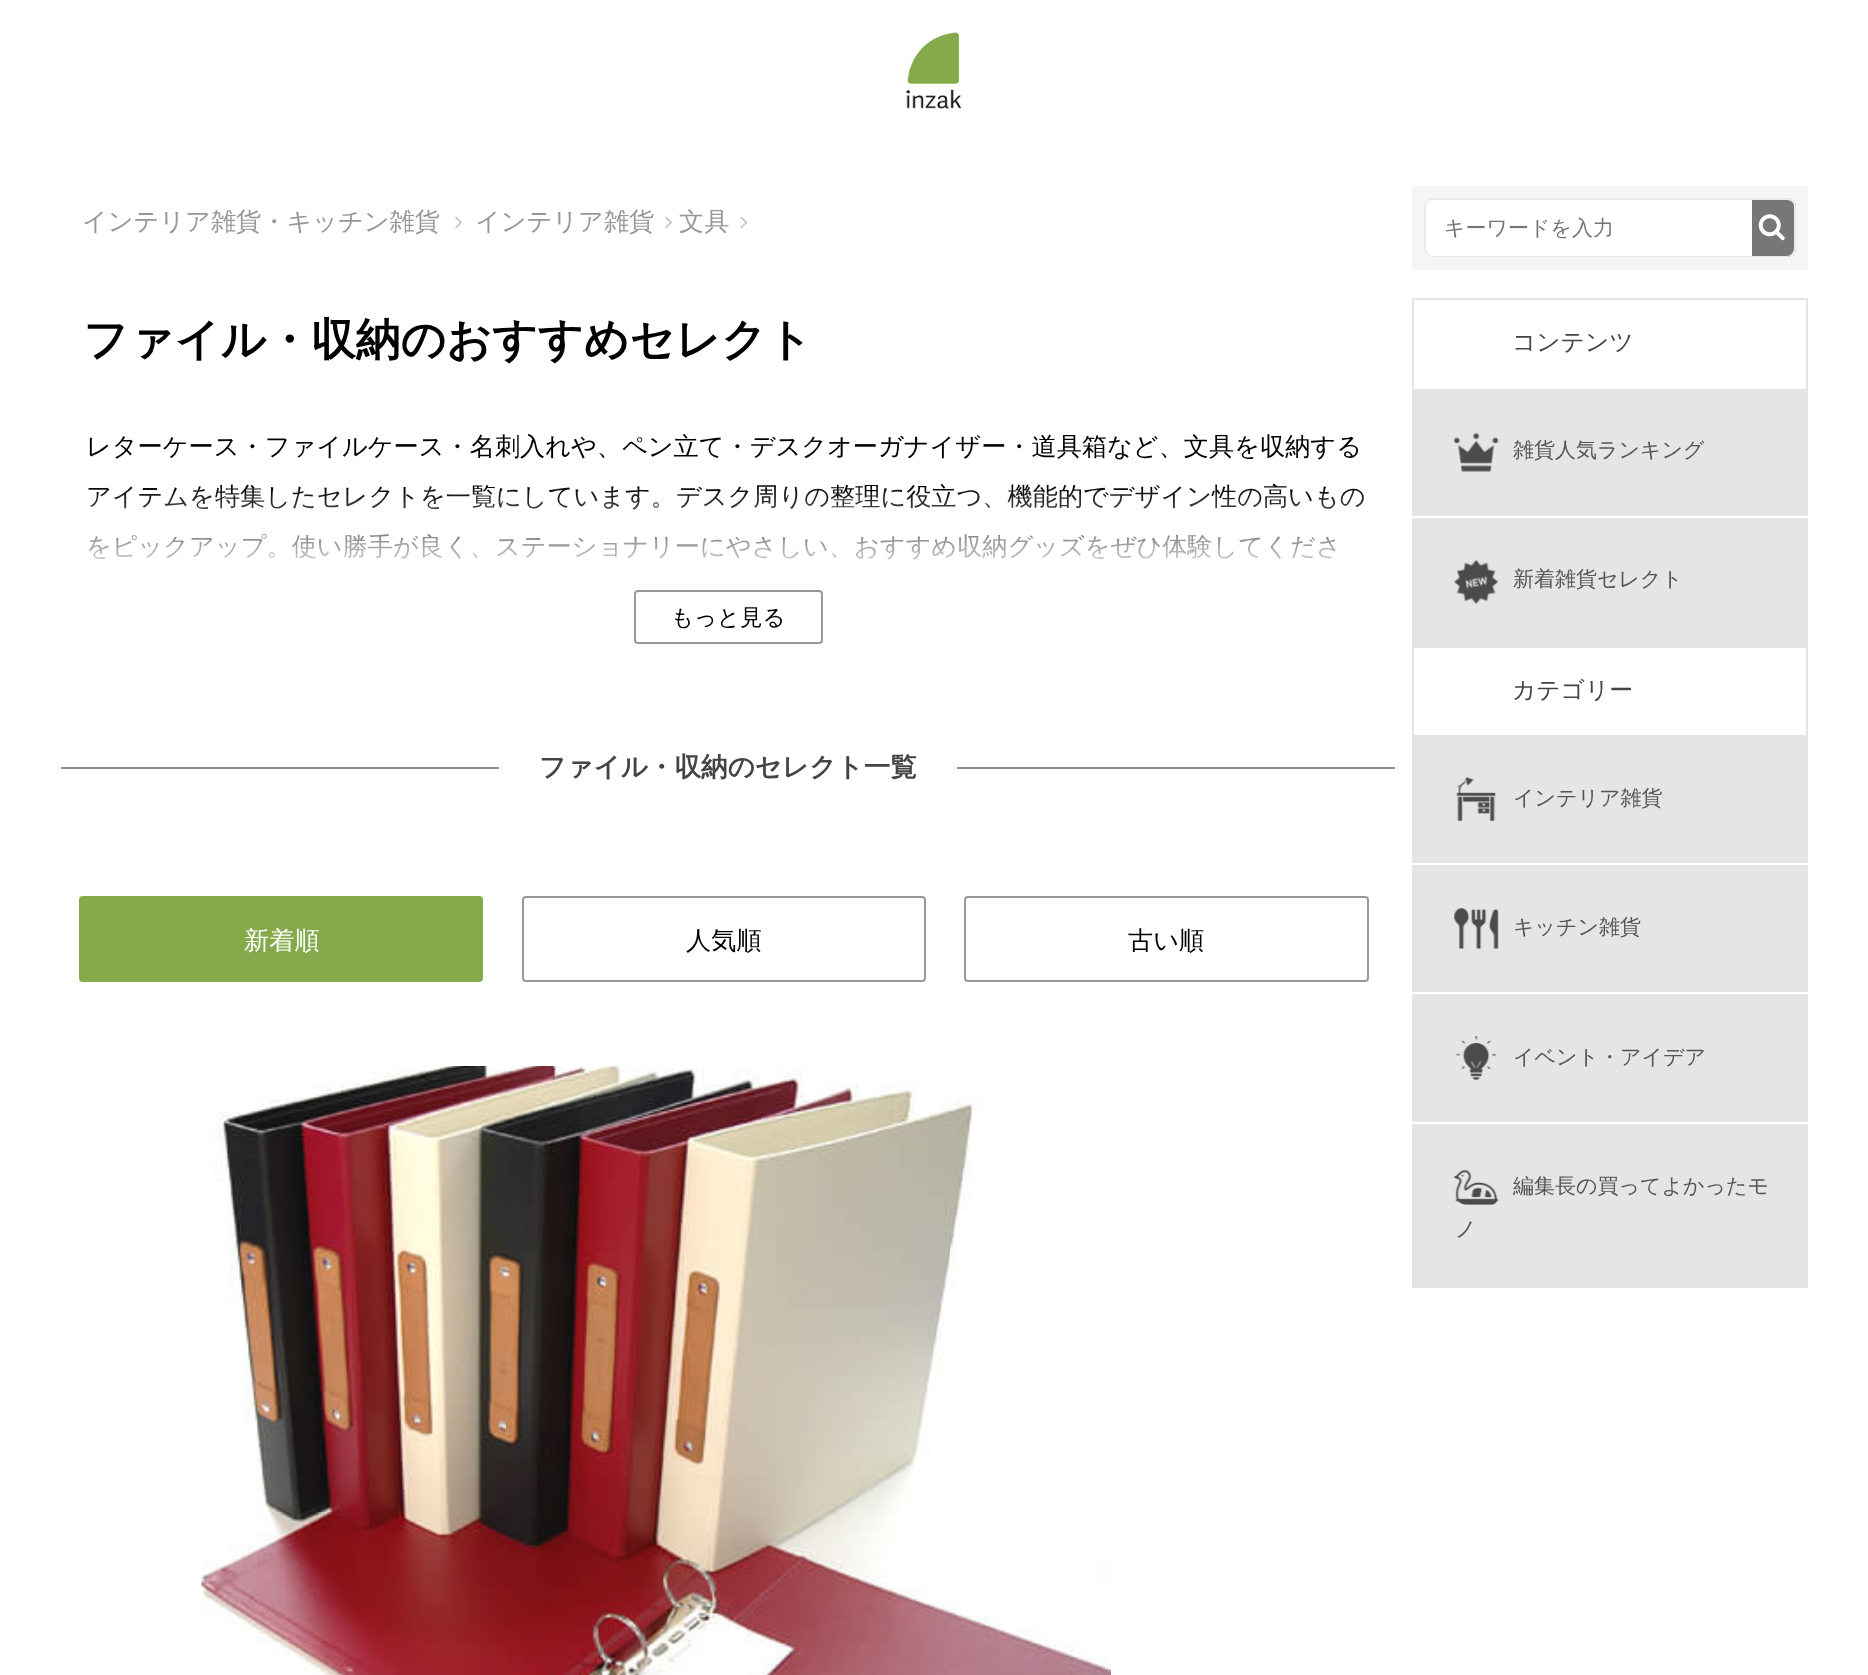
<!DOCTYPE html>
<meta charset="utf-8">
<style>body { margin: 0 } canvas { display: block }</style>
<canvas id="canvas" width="1868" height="1675"></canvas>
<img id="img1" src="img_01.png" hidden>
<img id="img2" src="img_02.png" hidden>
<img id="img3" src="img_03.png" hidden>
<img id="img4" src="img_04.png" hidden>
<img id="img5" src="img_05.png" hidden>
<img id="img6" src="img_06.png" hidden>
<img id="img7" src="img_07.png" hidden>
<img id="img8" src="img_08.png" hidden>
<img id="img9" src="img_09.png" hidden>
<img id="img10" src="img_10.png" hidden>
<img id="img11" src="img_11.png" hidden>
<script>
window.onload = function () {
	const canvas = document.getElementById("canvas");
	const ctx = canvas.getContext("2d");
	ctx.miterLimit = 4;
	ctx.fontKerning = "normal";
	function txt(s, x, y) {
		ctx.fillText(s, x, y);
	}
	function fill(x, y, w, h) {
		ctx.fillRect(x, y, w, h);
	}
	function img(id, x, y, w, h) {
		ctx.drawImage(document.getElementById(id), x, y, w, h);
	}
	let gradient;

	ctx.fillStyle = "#FFFFFF";
	fill(0, 0, 1868, 1675);
	img("img1", 905, 32, 57, 77);
	img("img2", 455, 216, 7, 13);
	img("img2", 665, 216, 7, 13);
	img("img3", 740, 216, 8, 13);
	ctx.beginPath();
	ctx.roundRect(635, 591, 187, 52, 3);
	ctx.strokeStyle = "#999999";
	ctx.lineWidth = 2;
	ctx.stroke();
	ctx.fillStyle = "#8D8D8D";
	fill(61, 767, 1334, 2);
	ctx.fillStyle = "#FFFFFF";
	fill(499, 767, 458, 2);
	ctx.fillStyle = "#84AA4B";
	ctx.beginPath();
	ctx.roundRect(80, 897, 402, 84, 3);
	ctx.fill();
	ctx.strokeStyle = "#84AA4B";
	ctx.stroke();
	ctx.beginPath();
	ctx.roundRect(523, 897, 402, 84, 3);
	ctx.strokeStyle = "#999999";
	ctx.stroke();
	ctx.beginPath();
	ctx.roundRect(965, 897, 403, 84, 3);
	ctx.stroke();
	img("img4", 200, 1066, 911, 609);
	ctx.fillStyle = "#F5F5F5";
	fill(1412, 186, 396, 84);
	ctx.fillStyle = "#FFFFFF";
	ctx.beginPath();
	ctx.roundRect(1425, 198, 327, 59, [9, 0, 0, 9]);
	ctx.fill();
	ctx.fillStyle = "#EBEBEB";
	ctx.beginPath();
	ctx.moveTo(1433, 198);
	ctx.lineTo(1752, 198);
	ctx.lineTo(1752, 257);
	ctx.lineTo(1433, 257);
	ctx.bezierCurveTo(1428, 257, 1424, 253, 1424, 248);
	ctx.lineTo(1424, 206);
	ctx.bezierCurveTo(1424, 202, 1428, 198, 1433, 198);
	ctx.closePath();
	ctx.moveTo(1433, 200);
	ctx.lineTo(1752, 200);
	ctx.lineTo(1752, 256);
	ctx.lineTo(1433, 256);
	ctx.bezierCurveTo(1429, 256, 1426, 252, 1426, 248);
	ctx.lineTo(1426, 206);
	ctx.bezierCurveTo(1426, 203, 1429, 200, 1433, 200);
	ctx.closePath();
	ctx.fill("evenodd");
	ctx.fillStyle = "#777777";
	ctx.beginPath();
	ctx.roundRect(1752, 198, 44, 59, [0, 9, 9, 0]);
	ctx.fill();
	ctx.fillStyle = "#EBEBEB";
	ctx.beginPath();
	ctx.moveTo(1752, 198);
	ctx.lineTo(1787, 198);
	ctx.bezierCurveTo(1792, 198, 1796, 202, 1796, 206);
	ctx.lineTo(1796, 248);
	ctx.bezierCurveTo(1796, 253, 1792, 257, 1787, 257);
	ctx.lineTo(1752, 257);
	ctx.closePath();
	ctx.moveTo(1752, 200);
	ctx.lineTo(1787, 200);
	ctx.bezierCurveTo(1791, 200, 1794, 203, 1794, 206);
	ctx.lineTo(1794, 248);
	ctx.bezierCurveTo(1794, 252, 1791, 256, 1787, 256);
	ctx.lineTo(1752, 256);
	ctx.closePath();
	ctx.fill("evenodd");
	img("img5", 1758, 214, 27, 27);
	ctx.fillStyle = "#E5E5E5";
	fill(1412, 298, 396, 2);
	fill(1806, 298, 2, 91);
	fill(1412, 298, 2, 91);
	fill(1412, 389, 396, 127);
	img("img6", 1454, 432, 45, 40);
	fill(1412, 518, 396, 130);
	img("img7", 1454, 559, 45, 45);
	fill(1806, 646, 2, 89);
	fill(1412, 646, 2, 89);
	fill(1412, 735, 396, 128);
	img("img8", 1456, 777, 41, 44);
	fill(1412, 865, 396, 127);
	img("img9", 1454, 908, 45, 41);
	fill(1412, 994, 396, 128);
	img("img10", 1455, 1036, 42, 44);
	fill(1412, 1124, 396, 164);
	img("img11", 1454, 1169, 45, 36);
	ctx.font = "500 25.2px WenQuanYi Zen Hei";
	ctx.fillStyle = "#979797";
	txt("インテリア雑貨・キッチン雑貨", 82, 230);
	txt("インテリア雑貨", 475, 230);
	txt("文具", 679, 230);
	ctx.font = "bold 44.75px WenQuanYi Zen Hei";
	ctx.fillStyle = "#000000";
	txt("ファイル・収納のおすすめセレクト", 83, 355);
	ctx.font = "500 25.2px WenQuanYi Zen Hei";
	txt("レターケース・ファイルケース・名刺入れや、ペン立て・デスクオーガナイザー・道具箱など、文具を収納する", 86, 455);
	txt("アイテムを特集したセレクトを一覧にしています。デスク周りの整理に役立つ、機能的でデザイン性の高いもの", 86, 505);
	txt("をピックアップ。使い勝手が良く、ステーショナリーにやさしい、おすすめ収納グッズをぜひ体験してくださ", 86, 555);
	gradient = ctx.createLinearGradient(728, 485, 728, 644);
	gradient.addColorStop(0, "rgba(255, 255, 255, 0)");
	gradient.addColorStop(0.6, "#FFFFFF");
	ctx.fillStyle = gradient;
	fill(88, 487, 1277, 73);
	ctx.font = "500 22.5px WenQuanYi Zen Hei";
	ctx.fillStyle = "#000000";
	txt("もっと見る", 671, 625);
	ctx.font = "bold 26.6px WenQuanYi Zen Hei";
	ctx.fillStyle = "#444444";
	txt("ファイル・収納のセレクト一覧", 539, 776);
	ctx.font = "500 25.2px WenQuanYi Zen Hei";
	ctx.fillStyle = "#FFFFFF";
	txt("新着順", 244, 949);
	ctx.fillStyle = "#000000";
	txt("人気順", 686, 949);
	txt("古い順", 1128, 949);
	ctx.font = "500 21px WenQuanYi Zen Hei";
	ctx.fillStyle = "#757575";
	txt("キーワードを入力", 1444, 235);
	ctx.font = "500 23.75px WenQuanYi Zen Hei";
	ctx.fillStyle = "#444444";
	txt("コンテンツ", 1512, 350);
	ctx.font = "500 21px WenQuanYi Zen Hei";
	ctx.fillStyle = "#555555";
	txt("雑貨人気ランキング", 1513, 457);
	txt("新着雑貨セレクト", 1513, 586);
	ctx.font = "500 23.75px WenQuanYi Zen Hei";
	ctx.fillStyle = "#444444";
	txt("カテゴリー", 1512, 698);
	ctx.font = "500 21px WenQuanYi Zen Hei";
	ctx.fillStyle = "#555555";
	txt("インテリア雑貨", 1513, 805);
	txt("キッチン雑貨", 1513, 934);
	txt("イベント・アイデア", 1513, 1064);
	txt("編集長の買ってよかったモ", 1513, 1193);
	txt("ノ", 1455, 1236);
};
</script>
